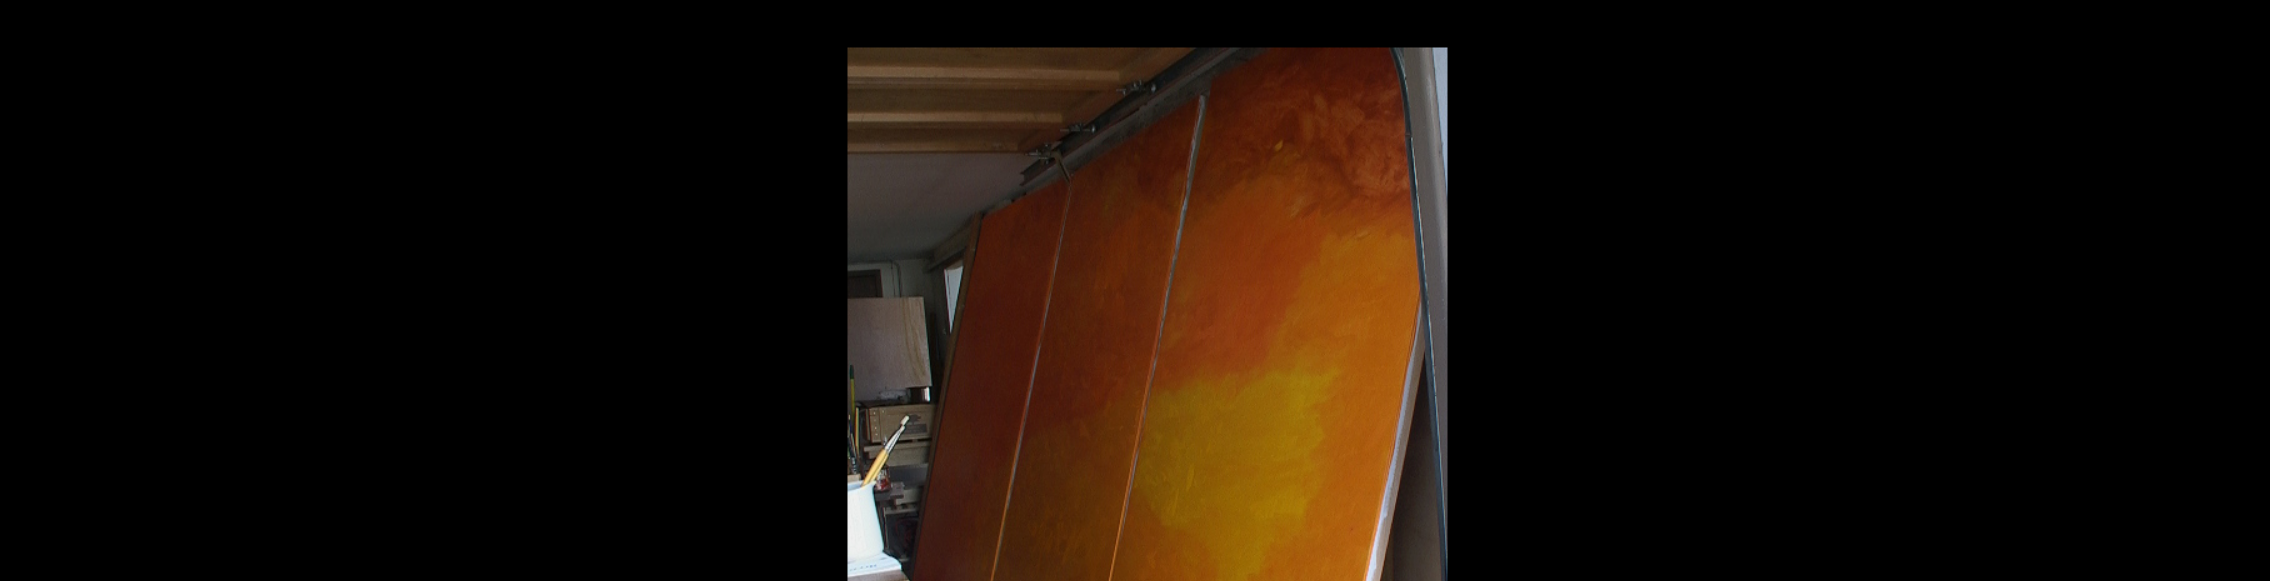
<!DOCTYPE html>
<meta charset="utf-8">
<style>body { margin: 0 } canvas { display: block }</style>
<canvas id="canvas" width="2270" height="581"></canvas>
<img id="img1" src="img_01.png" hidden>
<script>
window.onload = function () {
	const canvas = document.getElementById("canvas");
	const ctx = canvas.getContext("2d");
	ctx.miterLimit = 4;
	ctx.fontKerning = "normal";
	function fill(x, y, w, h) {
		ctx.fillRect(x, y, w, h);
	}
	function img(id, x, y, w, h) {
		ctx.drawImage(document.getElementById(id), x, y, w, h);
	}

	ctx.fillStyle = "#000000";
	fill(0, 0, 2270, 581);
	img("img1", 847, 47, 601, 534);
};
</script>
